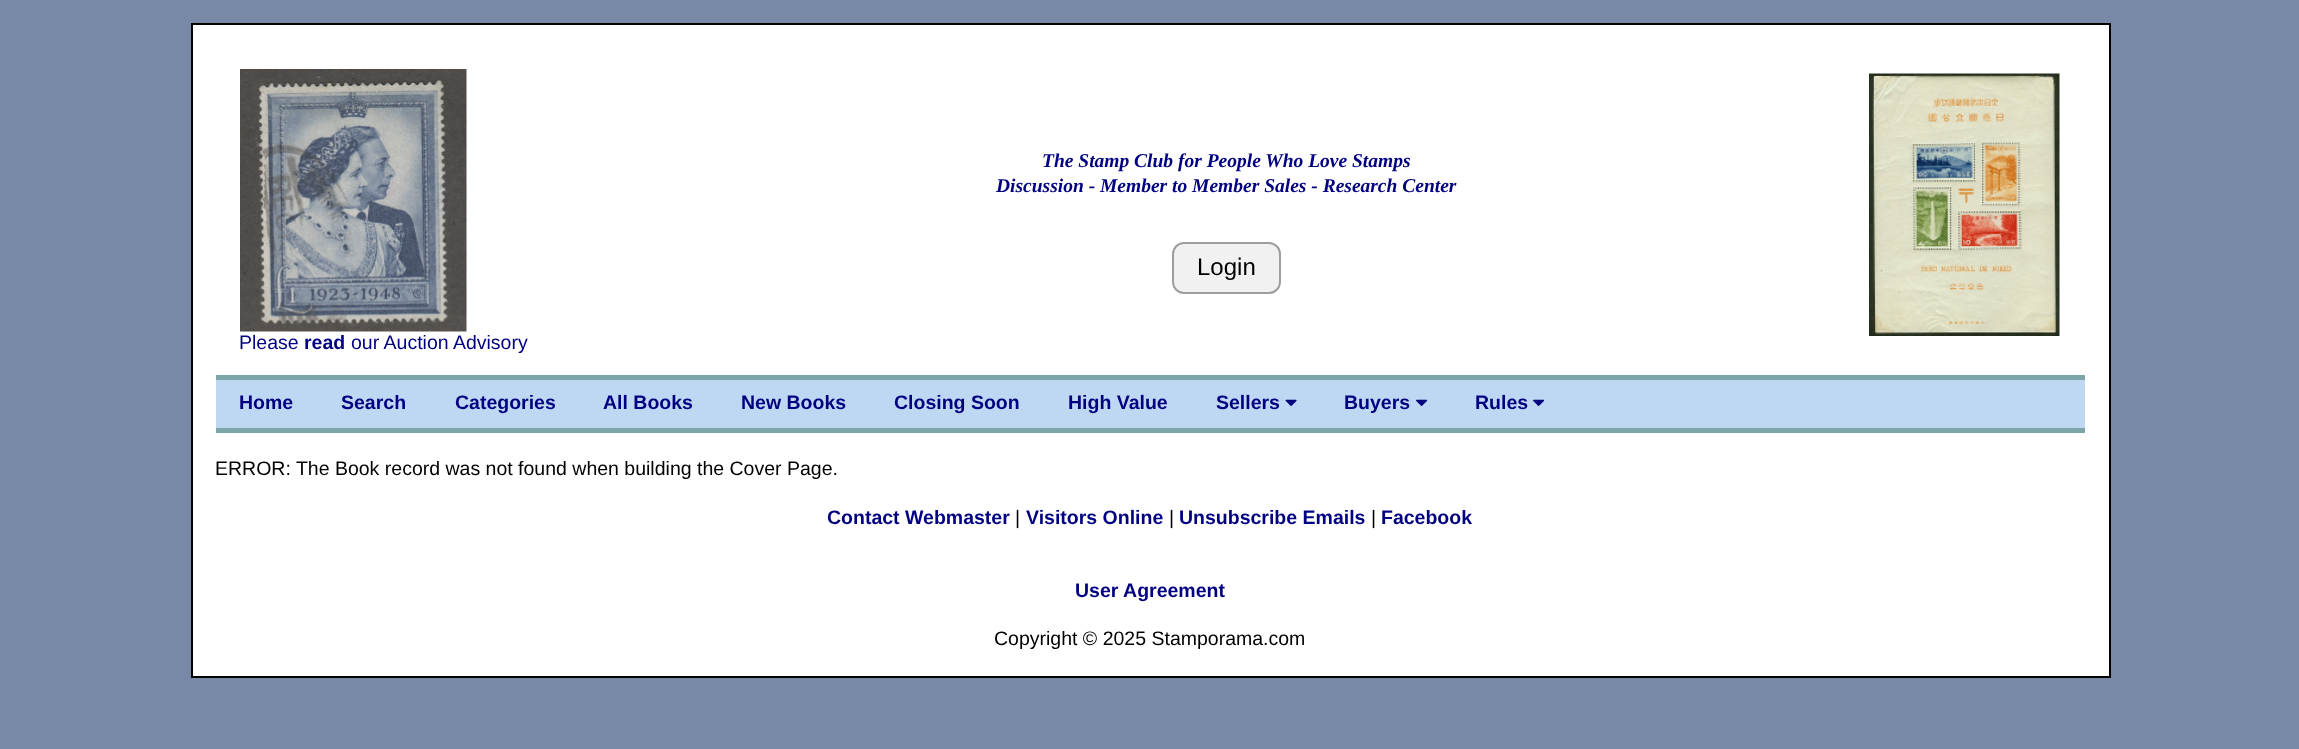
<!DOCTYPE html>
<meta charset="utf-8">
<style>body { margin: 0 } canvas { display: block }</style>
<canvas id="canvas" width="2299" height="749"></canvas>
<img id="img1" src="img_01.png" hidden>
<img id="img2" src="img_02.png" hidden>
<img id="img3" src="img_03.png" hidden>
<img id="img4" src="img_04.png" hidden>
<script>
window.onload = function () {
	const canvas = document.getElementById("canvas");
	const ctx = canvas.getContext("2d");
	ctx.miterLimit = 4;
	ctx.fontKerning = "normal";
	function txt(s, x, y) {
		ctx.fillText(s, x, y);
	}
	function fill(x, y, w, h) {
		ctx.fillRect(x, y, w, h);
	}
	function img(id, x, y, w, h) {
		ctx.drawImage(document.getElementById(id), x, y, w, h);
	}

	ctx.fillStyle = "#7789A6";
	fill(0, 0, 2299, 749);
	ctx.fillStyle = "#FFFFFF";
	ctx.beginPath();
	ctx.rect(192, 24, 1918, 653);
	ctx.fill();
	ctx.strokeStyle = "#000000";
	ctx.lineWidth = 2;
	ctx.stroke();
	ctx.fillStyle = "#F1F1F1";
	ctx.beginPath();
	ctx.roundRect(1173, 243, 107, 50, 11);
	ctx.fill();
	ctx.strokeStyle = "#9E9E9E";
	ctx.stroke();
	img("img1", 1869, 73, 191, 263);
	img("img2", 240, 69, 227, 263);
	ctx.fillStyle = "#BED8F3";
	fill(216, 380, 1869, 48);
	ctx.fillStyle = "#7DA5A8";
	fill(216, 375, 1869, 5);
	fill(216, 428, 1869, 5);
	img("img3", 1285, 399, 12, 7);
	img("img4", 1416, 399, 12, 7);
	img("img4", 1533, 399, 12, 7);
	ctx.font = "italic bold 19.5px Liberation Serif";
	ctx.fillStyle = "#000080";
	txt("The Stamp Club for People Who Love Stamps", 1042, 167);
	txt("Discussion - Member to Member Sales - Research Center", 996, 192);
	ctx.font = "24px Liberation Sans";
	ctx.fillStyle = "#000000";
	txt("Login", 1197, 275);
	ctx.font = "19.5px Liberation Sans";
	ctx.fillStyle = "#000080";
	txt("Please", 239, 349);
	ctx.font = "bold 19.5px Liberation Sans";
	txt("read", 304, 349);
	ctx.font = "19.5px Liberation Sans";
	txt("our Auction Advisory", 351, 349);
	ctx.font = "bold 19.5px Liberation Sans";
	txt("Home", 239, 409);
	txt("Search", 341, 409);
	txt("Categories", 455, 409);
	txt("All Books", 603, 409);
	txt("New Books", 741, 409);
	txt("Closing Soon", 894, 409);
	txt("High Value", 1068, 409);
	txt("Sellers", 1216, 409);
	txt("Buyers", 1344, 409);
	txt("Rules", 1475, 409);
	ctx.font = "19.5px Liberation Sans";
	ctx.fillStyle = "#000000";
	txt("ERROR: The Book record was not found when building the Cover Page.", 215, 475);
	ctx.font = "bold 19.5px Liberation Sans";
	ctx.fillStyle = "#000080";
	txt("Contact Webmaster", 827, 524);
	ctx.font = "19.5px Liberation Sans";
	ctx.fillStyle = "#000000";
	txt("|", 1015, 524);
	ctx.font = "bold 19.5px Liberation Sans";
	ctx.fillStyle = "#000080";
	txt("Visitors Online", 1026, 524);
	ctx.font = "19.5px Liberation Sans";
	ctx.fillStyle = "#000000";
	txt("|", 1169, 524);
	ctx.font = "bold 19.5px Liberation Sans";
	ctx.fillStyle = "#000080";
	txt("Unsubscribe Emails", 1179, 524);
	ctx.font = "19.5px Liberation Sans";
	ctx.fillStyle = "#000000";
	txt("|", 1371, 524);
	ctx.font = "bold 19.5px Liberation Sans";
	ctx.fillStyle = "#000080";
	txt("Facebook", 1381, 524);
	txt("User Agreement", 1075, 597);
	ctx.font = "19.5px Liberation Sans";
	ctx.fillStyle = "#000000";
	txt("Copyright © 2025 Stamporama.com", 994, 645);
};
</script>
